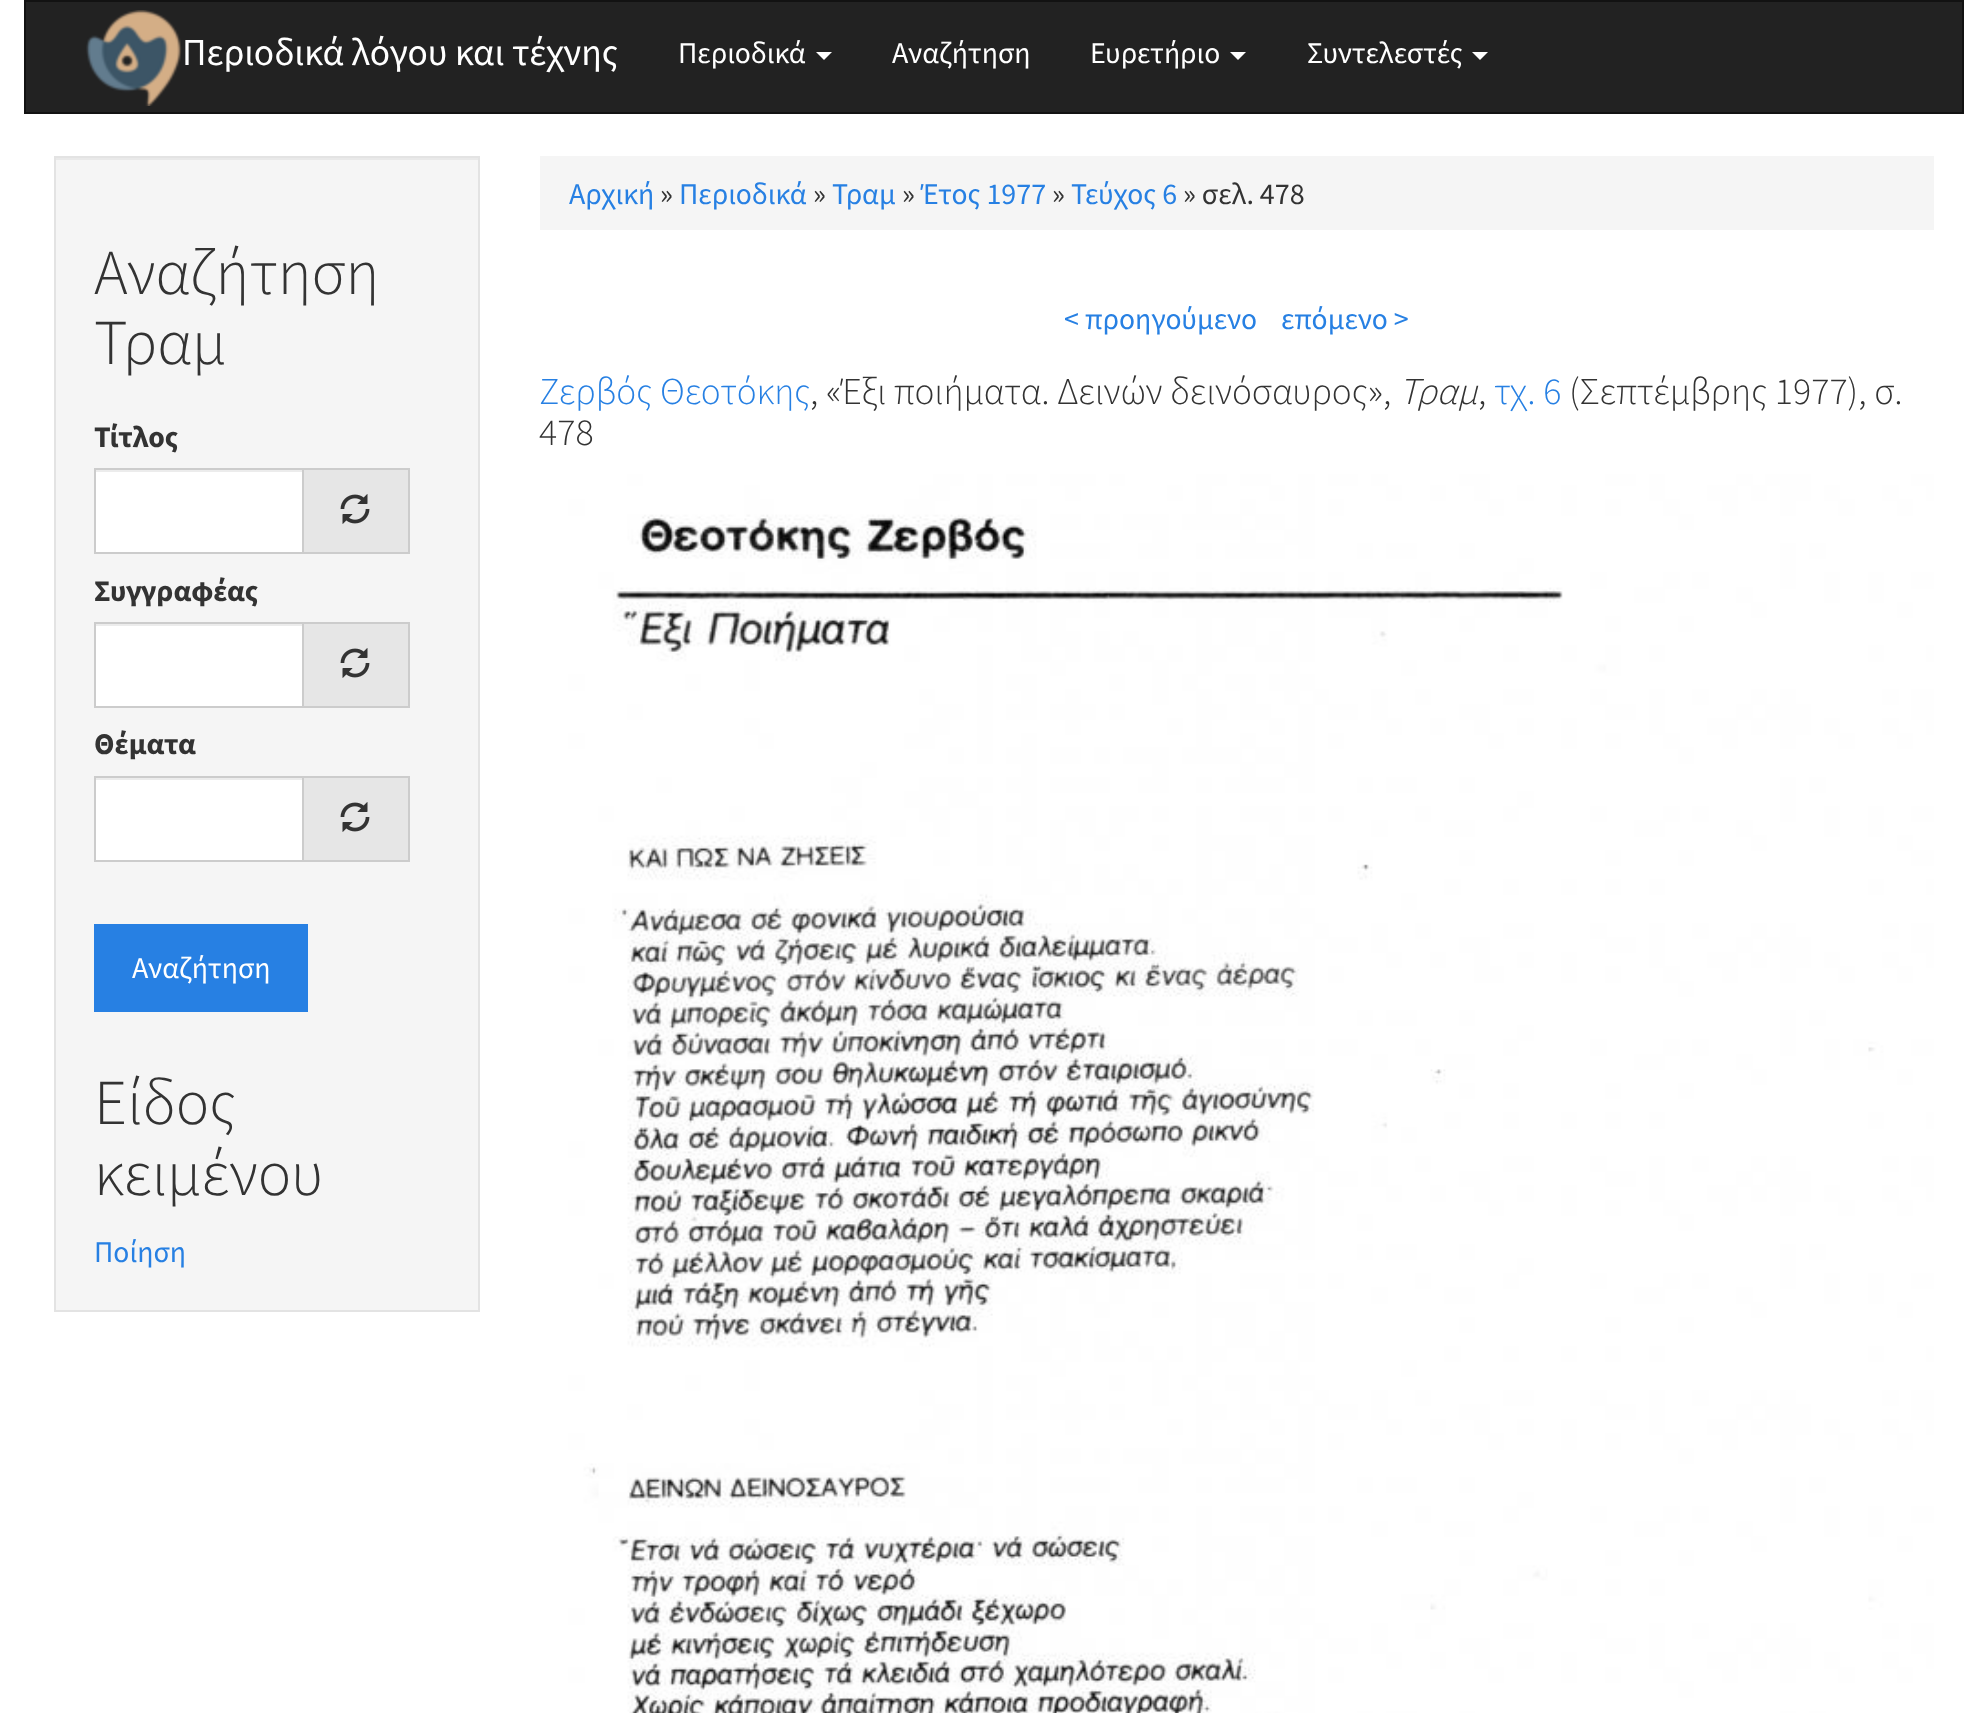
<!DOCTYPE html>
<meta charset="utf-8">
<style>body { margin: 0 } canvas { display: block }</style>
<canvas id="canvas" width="1988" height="1713"></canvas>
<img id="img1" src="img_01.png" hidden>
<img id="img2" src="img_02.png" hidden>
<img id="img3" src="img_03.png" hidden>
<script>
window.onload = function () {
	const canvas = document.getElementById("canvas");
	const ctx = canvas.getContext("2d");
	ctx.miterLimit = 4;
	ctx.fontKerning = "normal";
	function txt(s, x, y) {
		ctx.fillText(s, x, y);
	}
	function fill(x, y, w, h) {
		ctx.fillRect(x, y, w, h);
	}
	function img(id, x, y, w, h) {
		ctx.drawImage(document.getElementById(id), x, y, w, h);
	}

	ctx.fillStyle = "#FFFFFF";
	fill(0, 0, 1988, 1713);
	ctx.fillStyle = "#222222";
	ctx.beginPath();
	ctx.rect(25, 1, 1938, 112);
	ctx.fill();
	ctx.strokeStyle = "#121212";
	ctx.lineWidth = 2;
	ctx.stroke();
	img("img1", 86, 10, 96, 96);
	ctx.fillStyle = "#FFFFFF";
	ctx.beginPath();
	ctx.moveTo(816, 52);
	ctx.lineTo(832, 52);
	ctx.lineTo(824, 60);
	ctx.closePath();
	ctx.fill();
	ctx.beginPath();
	ctx.moveTo(1230, 52);
	ctx.lineTo(1246, 52);
	ctx.lineTo(1238, 60);
	ctx.closePath();
	ctx.fill();
	ctx.beginPath();
	ctx.moveTo(1472, 52);
	ctx.lineTo(1488, 52);
	ctx.lineTo(1480, 60);
	ctx.closePath();
	ctx.fill();
	ctx.fillStyle = "#F5F5F5";
	fill(56, 160, 422, 1150);
	ctx.fillStyle = "#E9E9E9";
	fill(56, 158, 422, 2);
	ctx.strokeStyle = "#E3E3E3";
	ctx.strokeRect(55, 157, 424, 1154);
	ctx.fillStyle = "#FFFFFF";
	fill(96, 472, 206, 80);
	ctx.fillStyle = "#ECECEC";
	fill(96, 470, 206, 2);
	ctx.strokeStyle = "#CCCCCC";
	ctx.strokeRect(95, 469, 208, 84);
	ctx.fillStyle = "#E6E6E6";
	fill(304, 470, 104, 82);
	ctx.fillStyle = "#CCCCCC";
	fill(304, 468, 106, 2);
	fill(408, 468, 2, 86);
	fill(304, 552, 106, 2);
	img("img2", 340, 494, 30, 30);
	ctx.fillStyle = "#FFFFFF";
	fill(96, 626, 206, 80);
	ctx.fillStyle = "#ECECEC";
	fill(96, 624, 206, 2);
	ctx.strokeRect(95, 623, 208, 84);
	ctx.fillStyle = "#E6E6E6";
	fill(304, 624, 104, 82);
	ctx.fillStyle = "#CCCCCC";
	fill(304, 622, 106, 2);
	fill(408, 622, 2, 86);
	fill(304, 706, 106, 2);
	img("img2", 340, 648, 30, 30);
	ctx.fillStyle = "#FFFFFF";
	fill(96, 780, 206, 80);
	ctx.fillStyle = "#ECECEC";
	fill(96, 778, 206, 2);
	ctx.strokeRect(95, 777, 208, 84);
	ctx.fillStyle = "#E6E6E6";
	fill(304, 778, 104, 82);
	ctx.fillStyle = "#CCCCCC";
	fill(304, 776, 106, 2);
	fill(408, 776, 2, 86);
	fill(304, 860, 106, 2);
	img("img2", 340, 802, 30, 30);
	ctx.fillStyle = "#2780E3";
	fill(94, 924, 214, 88);
	ctx.fillStyle = "#F5F5F5";
	fill(540, 156, 1394, 74);
	img("img3", 540, 474, 1394, 1239);
	ctx.font = "38px Source Sans Pro";
	ctx.fillStyle = "#FFFFFF";
	txt("Περιοδικά λόγου και τέχνης", 182, 65);
	ctx.font = "30px Source Sans Pro";
	txt("Περιοδικά", 678, 63);
	txt("Αναζήτηση", 892, 63);
	txt("Ευρετήριο", 1090, 63);
	txt("Συντελεστές", 1307, 63);
	ctx.font = "300 64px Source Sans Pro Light";
	ctx.fillStyle = "#333333";
	txt("Αναζήτηση", 94, 294);
	txt("Τραμ", 94, 364);
	ctx.font = "bold 30px Source Sans Pro";
	txt("Τίτλος", 94, 447);
	txt("Συγγραφέας", 94, 601);
	txt("Θέματα", 94, 754);
	ctx.font = "30px Source Sans Pro";
	ctx.fillStyle = "#FFFFFF";
	txt("Αναζήτηση", 132, 978);
	ctx.font = "300 64px Source Sans Pro Light";
	ctx.fillStyle = "#333333";
	txt("Είδος", 94, 1124);
	txt("κειμένου", 94, 1195);
	ctx.font = "30px Source Sans Pro";
	ctx.fillStyle = "#2780E3";
	txt("Ποίηση", 94, 1262);
	txt("Αρχική", 569, 204);
	ctx.fillStyle = "#333333";
	txt("»", 660, 204);
	ctx.fillStyle = "#2780E3";
	txt("Περιοδικά", 679, 204);
	ctx.fillStyle = "#333333";
	txt("»", 813, 204);
	ctx.fillStyle = "#2780E3";
	txt("Τραμ", 832, 204);
	ctx.fillStyle = "#333333";
	txt("»", 902, 204);
	ctx.fillStyle = "#2780E3";
	txt("Έτος 1977", 921, 204);
	ctx.fillStyle = "#333333";
	txt("»", 1052, 204);
	ctx.fillStyle = "#2780E3";
	txt("Τεύχος 6", 1071, 204);
	ctx.fillStyle = "#333333";
	txt("» σελ. 478", 1183, 204);
	ctx.fillStyle = "#2780E3";
	txt("< προηγούμενο", 1064, 329);
	txt("επόμενο >", 1281, 329);
	ctx.font = "300 38px Source Sans Pro Light";
	txt("Ζερβός Θεοτόκης", 539, 404);
	ctx.fillStyle = "#333333";
	txt(", «Έξι ποιήματα. Δεινών δεινόσαυρος»,", 810, 404);
	ctx.font = "italic 300 38px Source Sans Pro Light";
	txt("Τραμ", 1399, 404);
	ctx.font = "300 38px Source Sans Pro Light";
	txt(",", 1478, 404);
	ctx.fillStyle = "#2780E3";
	txt("τχ. 6", 1494, 404);
	ctx.fillStyle = "#333333";
	txt("(Σεπτέμβρης 1977), σ.", 1569, 404);
	txt("478", 539, 445);
};
</script>
